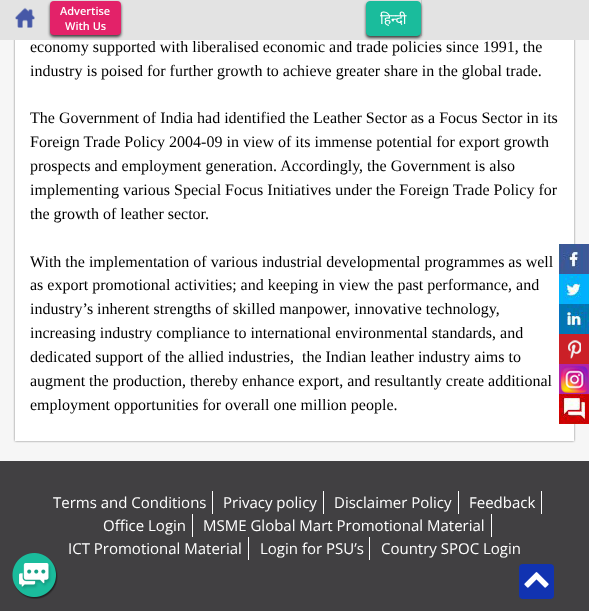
<!DOCTYPE html>
<meta charset="utf-8">
<style>body { margin: 0 } canvas { display: block }</style>
<canvas id="canvas" width="589" height="611"></canvas>
<img id="img1" src="img_01.png" hidden>
<img id="img2" src="img_02.png" hidden>
<img id="img3" src="img_03.png" hidden>
<img id="img4" src="img_04.png" hidden>
<img id="img5" src="img_05.png" hidden>
<img id="img6" src="img_06.png" hidden>
<img id="img7" src="img_07.png" hidden>
<img id="img8" src="img_08.png" hidden>
<img id="img9" src="img_09.png" hidden>
<script>
window.onload = function () {
	const canvas = document.getElementById("canvas");
	const ctx = canvas.getContext("2d");
	ctx.miterLimit = 4;
	ctx.fontKerning = "normal";
	function txt(s, x, y) {
		ctx.fillText(s, x, y);
	}
	function fill(x, y, w, h) {
		ctx.fillRect(x, y, w, h);
	}
	function round(x, y, w, h, r) {
		ctx.beginPath();
		ctx.roundRect(x, y, w, h, r);
		ctx.fill();
	}
	function img(id, x, y, w, h) {
		ctx.drawImage(document.getElementById(id), x, y, w, h);
	}

	ctx.fillStyle = "#F6F6F6";
	fill(0, 0, 589, 611);
	ctx.fillStyle = "rgba(0, 0, 0, 0.5)";
	ctx.filter = "blur(1px)";
	ctx.beginPath();
	ctx.rect(15, -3, 559, 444);
	ctx.fill();
	ctx.filter = "none";
	ctx.fillStyle = "#E3E3E3";
	fill(0, 0, 589, 40);
	img("img1", 15, 7, 20, 21);
	ctx.fillStyle = "#FFFFFF";
	fill(15, 40, 559, 401);
	ctx.fillStyle = "#3E3D3D";
	ctx.filter = "blur(1.5px)";
	ctx.beginPath();
	ctx.roundRect(50, 3, 71, 34, 4);
	ctx.fill();
	ctx.filter = "none";
	ctx.fillStyle = "#E32269";
	round(50, 1, 71, 34, 4);
	ctx.fillStyle = "#CACACA";
	fill(421, 0, 1, 36);
	ctx.fillStyle = "#3E3D3D";
	ctx.filter = "blur(1.5px)";
	ctx.beginPath();
	ctx.roundRect(366, 3, 55, 35, 4);
	ctx.fill();
	ctx.filter = "none";
	ctx.fillStyle = "#1ABC9C";
	ctx.beginPath();
	ctx.roundRect(366.5, 1.5, 54, 34, 3.5);
	ctx.fill();
	ctx.strokeStyle = "#1ABC9C";
	ctx.stroke();
	img("img2", 559, 244, 30, 30);
	ctx.fillStyle = "#01B1FD";
	fill(559, 274, 2, 30);
	img("img3", 561, 274, 28, 30);
	img("img4", 559, 304, 30, 30);
	ctx.fillStyle = "#CB2027";
	fill(559, 334, 30, 30);
	img("img5", 568, 340, 13, 19);
	ctx.fillStyle = "#B023A7";
	fill(559, 364, 30, 30);
	img("img6", 561, 366, 27, 27);
	img("img7", 559, 394, 30, 30);
	ctx.fillStyle = "#414042";
	fill(0, 461, 589, 150);
	ctx.fillStyle = "#FFFFFF";
	fill(212, 491, 1, 23);
	fill(323, 491, 1, 23);
	fill(458, 491, 1, 23);
	fill(541, 491, 1, 23);
	fill(192, 514, 1, 23);
	fill(491, 514, 1, 23);
	fill(248, 537, 1, 23);
	fill(369, 537, 1, 23);
	img("img8", 12, 553, 46, 46);
	ctx.fillStyle = "#1133B1";
	round(519, 564, 35, 35, 4);
	img("img9", 524, 572, 25, 16);
	ctx.font = "600 11px Open Sans";
	ctx.fillStyle = "#FFFFFF";
	txt("Advertise", 60, 15);
	txt("With Us", 65, 30);
	ctx.font = "14px Noto Sans";
	txt("हिन्दी", 380, 24);
	ctx.font = "16px Liberation Serif";
	ctx.fillStyle = "#000000";
	txt("economy supported with liberalised economic and trade policies since 1991, the", 30, 52);
	txt("industry is poised for further growth to achieve greater share in the global trade.", 30, 76);
	txt("The Government of India had identified the Leather Sector as a Focus Sector in its", 30, 123);
	txt("Foreign Trade Policy 2004-09 in view of its immense potential for export growth", 30, 147);
	txt("prospects and employment generation. Accordingly, the Government is also", 30, 171);
	txt("implementing various Special Focus Initiatives under the Foreign Trade Policy for", 30, 195);
	txt("the growth of leather sector.", 30, 219);
	txt("With the implementation of various industrial developmental programmes as well", 30, 267);
	txt("as export promotional activities; and keeping in view the past performance, and", 30, 290);
	txt("industry’s inherent strengths of skilled manpower, innovative technology,", 30, 314);
	txt("increasing industry compliance to international environmental standards, and", 30, 338);
	txt("dedicated support of the allied industries,  the Indian leather industry aims to", 30, 362);
	txt("augment the production, thereby enhance export, and resultantly create additional", 30, 386);
	txt("employment opportunities for overall one million people.", 30, 410);
	ctx.font = "15px Open Sans";
	ctx.fillStyle = "#FFFFFF";
	txt("Terms and Conditions", 53, 508);
	txt("Privacy policy", 223, 508);
	txt("Disclaimer Policy", 334, 508);
	txt("Feedback", 469, 508);
	txt("Office Login", 103, 531);
	txt("MSME Global Mart Promotional Material", 203, 531);
	txt("ICT Promotional Material", 68, 554);
	txt("Login for PSU’s", 260, 554);
	txt("Country SPOC Login", 381, 554);
};
</script>
